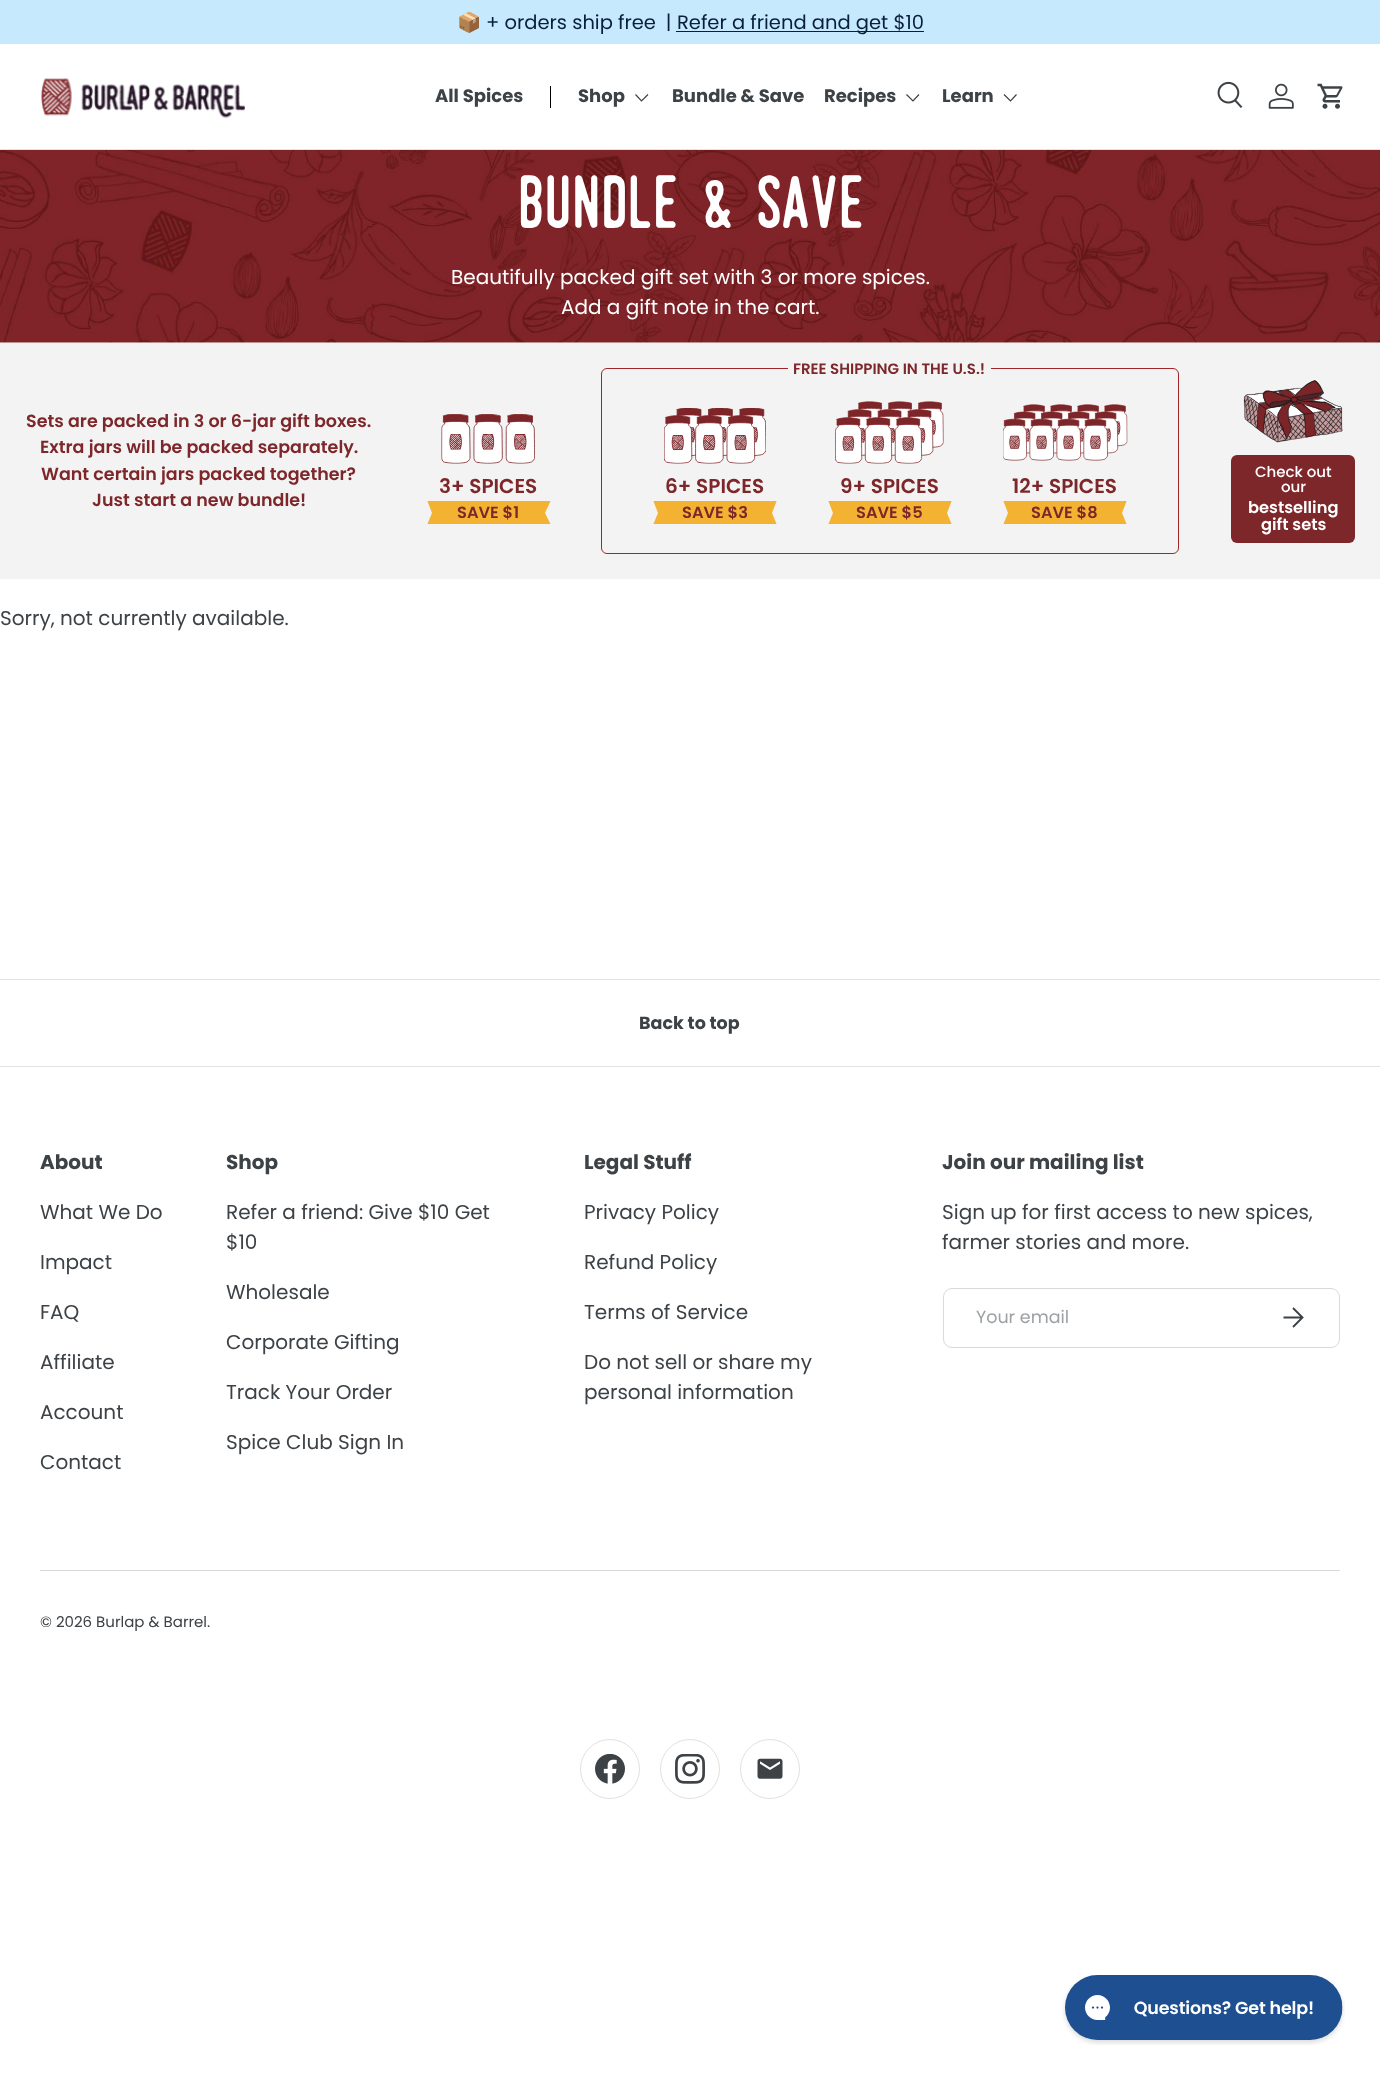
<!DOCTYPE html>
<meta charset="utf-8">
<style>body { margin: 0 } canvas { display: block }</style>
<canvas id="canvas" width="1380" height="2073"></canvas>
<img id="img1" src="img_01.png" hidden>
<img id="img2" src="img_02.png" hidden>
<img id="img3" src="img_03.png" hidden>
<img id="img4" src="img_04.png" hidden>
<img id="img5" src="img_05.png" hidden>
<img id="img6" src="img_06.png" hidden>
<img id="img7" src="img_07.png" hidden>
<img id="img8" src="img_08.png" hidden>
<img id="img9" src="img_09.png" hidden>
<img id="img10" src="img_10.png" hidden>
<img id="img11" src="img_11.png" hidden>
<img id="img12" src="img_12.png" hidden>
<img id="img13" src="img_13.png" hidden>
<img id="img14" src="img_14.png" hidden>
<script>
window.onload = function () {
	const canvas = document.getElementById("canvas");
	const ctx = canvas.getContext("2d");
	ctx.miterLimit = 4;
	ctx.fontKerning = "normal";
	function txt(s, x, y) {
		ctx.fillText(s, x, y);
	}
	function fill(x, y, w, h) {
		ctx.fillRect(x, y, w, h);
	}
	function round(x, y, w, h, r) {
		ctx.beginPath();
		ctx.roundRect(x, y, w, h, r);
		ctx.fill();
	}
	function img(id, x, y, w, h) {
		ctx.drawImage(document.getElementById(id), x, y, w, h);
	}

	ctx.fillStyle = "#FFFFFF";
	fill(0, 0, 1380, 2073);
	ctx.fillStyle = "#C7E9FE";
	fill(0, 0, 1380, 44);
	ctx.fillStyle = "#091F3B";
	fill(676, 31, 248, 1);
	ctx.fillStyle = "#E2E3E3";
	fill(0, 149, 1380, 1);
	img("img1", 41, 78, 204, 41);
	ctx.fillStyle = "#000000";
	fill(550, 86, 1, 22);
	ctx.beginPath();
	ctx.moveTo(648, 94.5);
	ctx.lineTo(641.5, 101);
	ctx.lineTo(635.5, 94.5);
	ctx.strokeStyle = "#3D4246";
	ctx.lineWidth = 1.2;
	ctx.stroke();
	ctx.beginPath();
	ctx.moveTo(919, 94.5);
	ctx.lineTo(913, 101);
	ctx.lineTo(906.5, 94.5);
	ctx.stroke();
	ctx.beginPath();
	ctx.moveTo(1016.5, 94.5);
	ctx.lineTo(1010.5, 101);
	ctx.lineTo(1004, 94.5);
	ctx.stroke();
	img("img2", 1217, 81, 26, 27);
	img("img3", 1268, 83, 26, 26);
	img("img4", 1317, 83, 26, 26);
	img("img5", 0, 150, 1380, 193);
	ctx.fillStyle = "#F3F3F3";
	fill(0, 343, 1380, 236);
	img("img6", 441, 414, 94, 50);
	ctx.save();
	ctx.beginPath();
	ctx.rect(426, 501, 125, 23);
	ctx.clip();
	ctx.fillStyle = "#F4B233";
	ctx.beginPath();
	ctx.moveTo(427, 500);
	ctx.lineTo(432, 513);
	ctx.lineTo(427, 525);
	ctx.lineTo(551, 525);
	ctx.lineTo(545, 513);
	ctx.lineTo(551, 500);
	ctx.closePath();
	ctx.fill();
	ctx.restore();
	ctx.beginPath();
	ctx.roundRect(601.5, 368.5, 577, 185, 5.5);
	ctx.strokeStyle = "#A2252A";
	ctx.lineWidth = 1;
	ctx.stroke();
	fill(788, 368, 203, 1);
	img("img7", 664, 408, 102, 56);
	ctx.save();
	ctx.beginPath();
	ctx.rect(653, 501, 125, 23);
	ctx.clip();
	ctx.fillStyle = "#F4B233";
	ctx.beginPath();
	ctx.moveTo(653, 500);
	ctx.lineTo(658, 513);
	ctx.lineTo(653, 525);
	ctx.lineTo(777, 525);
	ctx.lineTo(772, 513);
	ctx.lineTo(777, 500);
	ctx.closePath();
	ctx.fill();
	ctx.restore();
	img("img8", 835, 401, 109, 63);
	ctx.save();
	ctx.beginPath();
	ctx.rect(828, 501, 125, 23);
	ctx.clip();
	ctx.fillStyle = "#F4B233";
	ctx.beginPath();
	ctx.moveTo(828, 500);
	ctx.lineTo(833, 513);
	ctx.lineTo(828, 525);
	ctx.lineTo(952, 525);
	ctx.lineTo(947, 513);
	ctx.lineTo(952, 500);
	ctx.closePath();
	ctx.fill();
	ctx.restore();
	img("img9", 1003, 404, 125, 57);
	ctx.save();
	ctx.beginPath();
	ctx.rect(1003, 501, 125, 23);
	ctx.clip();
	ctx.fillStyle = "#F4B233";
	ctx.beginPath();
	ctx.moveTo(1003, 500);
	ctx.lineTo(1008, 513);
	ctx.lineTo(1003, 525);
	ctx.lineTo(1127, 525);
	ctx.lineTo(1122, 513);
	ctx.lineTo(1127, 500);
	ctx.closePath();
	ctx.fill();
	ctx.restore();
	img("img10", 1243, 380, 100, 63);
	ctx.fillStyle = "#7E272A";
	round(1231, 455, 124, 88, 6);
	ctx.fillStyle = "#E2E3E3";
	fill(0, 979, 1380, 1);
	fill(0, 1066, 1380, 1);
	ctx.beginPath();
	ctx.roundRect(943.5, 1288.5, 396, 59, 8.5);
	ctx.strokeStyle = "#D8D9DA";
	ctx.stroke();
	ctx.beginPath();
	ctx.moveTo(1283.5, 1317.5);
	ctx.lineTo(1301.5, 1317.5);
	ctx.moveTo(1293, 1308);
	ctx.lineTo(1302.5, 1317.5);
	ctx.lineTo(1293, 1327);
	ctx.strokeStyle = "#3D4246";
	ctx.lineWidth = 1.9;
	ctx.stroke();
	ctx.fillStyle = "#D8D9DA";
	fill(40, 1570, 1300, 1);
	ctx.beginPath();
	ctx.arc(610, 1769, 29.5, 0, Math.PI * 2);
	ctx.strokeStyle = "#E1E1E1";
	ctx.lineWidth = 1;
	ctx.stroke();
	img("img11", 595, 1754, 30, 30);
	ctx.beginPath();
	ctx.arc(690, 1769, 29.5, 0, Math.PI * 2);
	ctx.stroke();
	img("img12", 675, 1754, 30, 30);
	ctx.beginPath();
	ctx.arc(770, 1769, 29.5, 0, Math.PI * 2);
	ctx.stroke();
	img("img13", 757, 1758, 26, 21);
	img("img14", 1062, 1975, 283, 70);
	ctx.font = "19.5px Noto Color Emoji";
	ctx.fillStyle = "#091F3B";
	txt("📦", 457, 29);
	ctx.font = "19.5px Poppins";
	txt("+ orders ship free |", 486, 29);
	txt("Refer a friend and get $10", 677, 29);
	ctx.font = "bold 18px Poppins";
	ctx.fillStyle = "#3D4246";
	txt("All Spices", 435, 102);
	txt("Shop", 578, 102);
	txt("Bundle & Save", 672, 102);
	txt("Recipes", 824, 102);
	txt("Learn", 942, 102);
	ctx.font = "72.5px 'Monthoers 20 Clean'";
	ctx.fillStyle = "#FFFFFF";
	txt("bundle & save", 517, 228);
	ctx.font = "20px Poppins";
	txt("Beautifully packed gift set with 3 or more spices.", 451, 284);
	txt("Add a gift note in the cart.", 561, 314);
	ctx.font = "600 17.5px Poppins";
	ctx.fillStyle = "#7E272A";
	txt("Sets are packed in 3 or 6-jar gift boxes.", 26, 427);
	txt("Extra jars will be packed separately.", 40, 453);
	txt("Want certain jars packed together?", 41, 480);
	txt("Just start a new bundle!", 92, 506);
	ctx.font = "600 20px Poppins";
	txt("3+ SPICES", 439, 493);
	ctx.font = "600 16.25px Poppins";
	txt("SAVE $1", 457, 518);
	ctx.font = "600 15px Poppins";
	txt("FREE SHIPPING IN THE U.S.!", 793, 374);
	ctx.font = "600 20px Poppins";
	txt("6+ SPICES", 665, 493);
	ctx.font = "600 16.25px Poppins";
	txt("SAVE $3", 682, 518);
	ctx.font = "600 20px Poppins";
	txt("9+ SPICES", 840, 493);
	ctx.font = "600 16.25px Poppins";
	txt("SAVE $5", 856, 518);
	ctx.font = "600 20px Poppins";
	txt("12+ SPICES", 1012, 493);
	ctx.font = "600 16.25px Poppins";
	txt("SAVE $8", 1031, 518);
	ctx.font = "500 15px Poppins";
	ctx.fillStyle = "#FFFFFF";
	txt("Check out", 1255, 477);
	txt("our", 1281, 492);
	ctx.font = "600 16.25px Poppins";
	txt("bestselling", 1248, 513);
	txt("gift sets", 1261, 530);
	ctx.font = "20px Poppins";
	ctx.fillStyle = "#3D4246";
	txt("Sorry, not currently available.", 0, 625);
	ctx.font = "bold 17.5px Poppins";
	txt("Back to top", 639, 1029);
	ctx.font = "bold 20px Poppins";
	txt("About", 40, 1169);
	ctx.font = "20px Poppins";
	txt("What We Do", 40, 1219);
	txt("Impact", 40, 1269);
	txt("FAQ", 40, 1319);
	txt("Affiliate", 40, 1369);
	txt("Account", 40, 1419);
	txt("Contact", 40, 1469);
	ctx.font = "bold 20px Poppins";
	txt("Shop", 226, 1169);
	ctx.font = "20px Poppins";
	txt("Refer a friend: Give $10 Get", 226, 1219);
	txt("$10", 226, 1249);
	txt("Wholesale", 226, 1299);
	txt("Corporate Gifting", 226, 1349);
	txt("Track Your Order", 226, 1399);
	txt("Spice Club Sign In", 226, 1449);
	ctx.font = "bold 20px Poppins";
	txt("Legal Stuff", 584, 1169);
	ctx.font = "20px Poppins";
	txt("Privacy Policy", 584, 1219);
	txt("Refund Policy", 584, 1269);
	txt("Terms of Service", 584, 1319);
	txt("Do not sell or share my", 584, 1369);
	txt("personal information", 584, 1399);
	ctx.font = "bold 20px Poppins";
	txt("Join our mailing list", 942, 1169);
	ctx.font = "20px Poppins";
	txt("Sign up for first access to new spices,", 942, 1219);
	txt("farmer stories and more.", 942, 1249);
	ctx.font = "17.5px Poppins";
	ctx.fillStyle = "#9EA1A3";
	txt("Your email", 976, 1323);
	ctx.font = "15px Poppins";
	ctx.fillStyle = "#3D4246";
	txt("© 2026 Burlap & Barrel.", 40, 1627);
};
</script>
